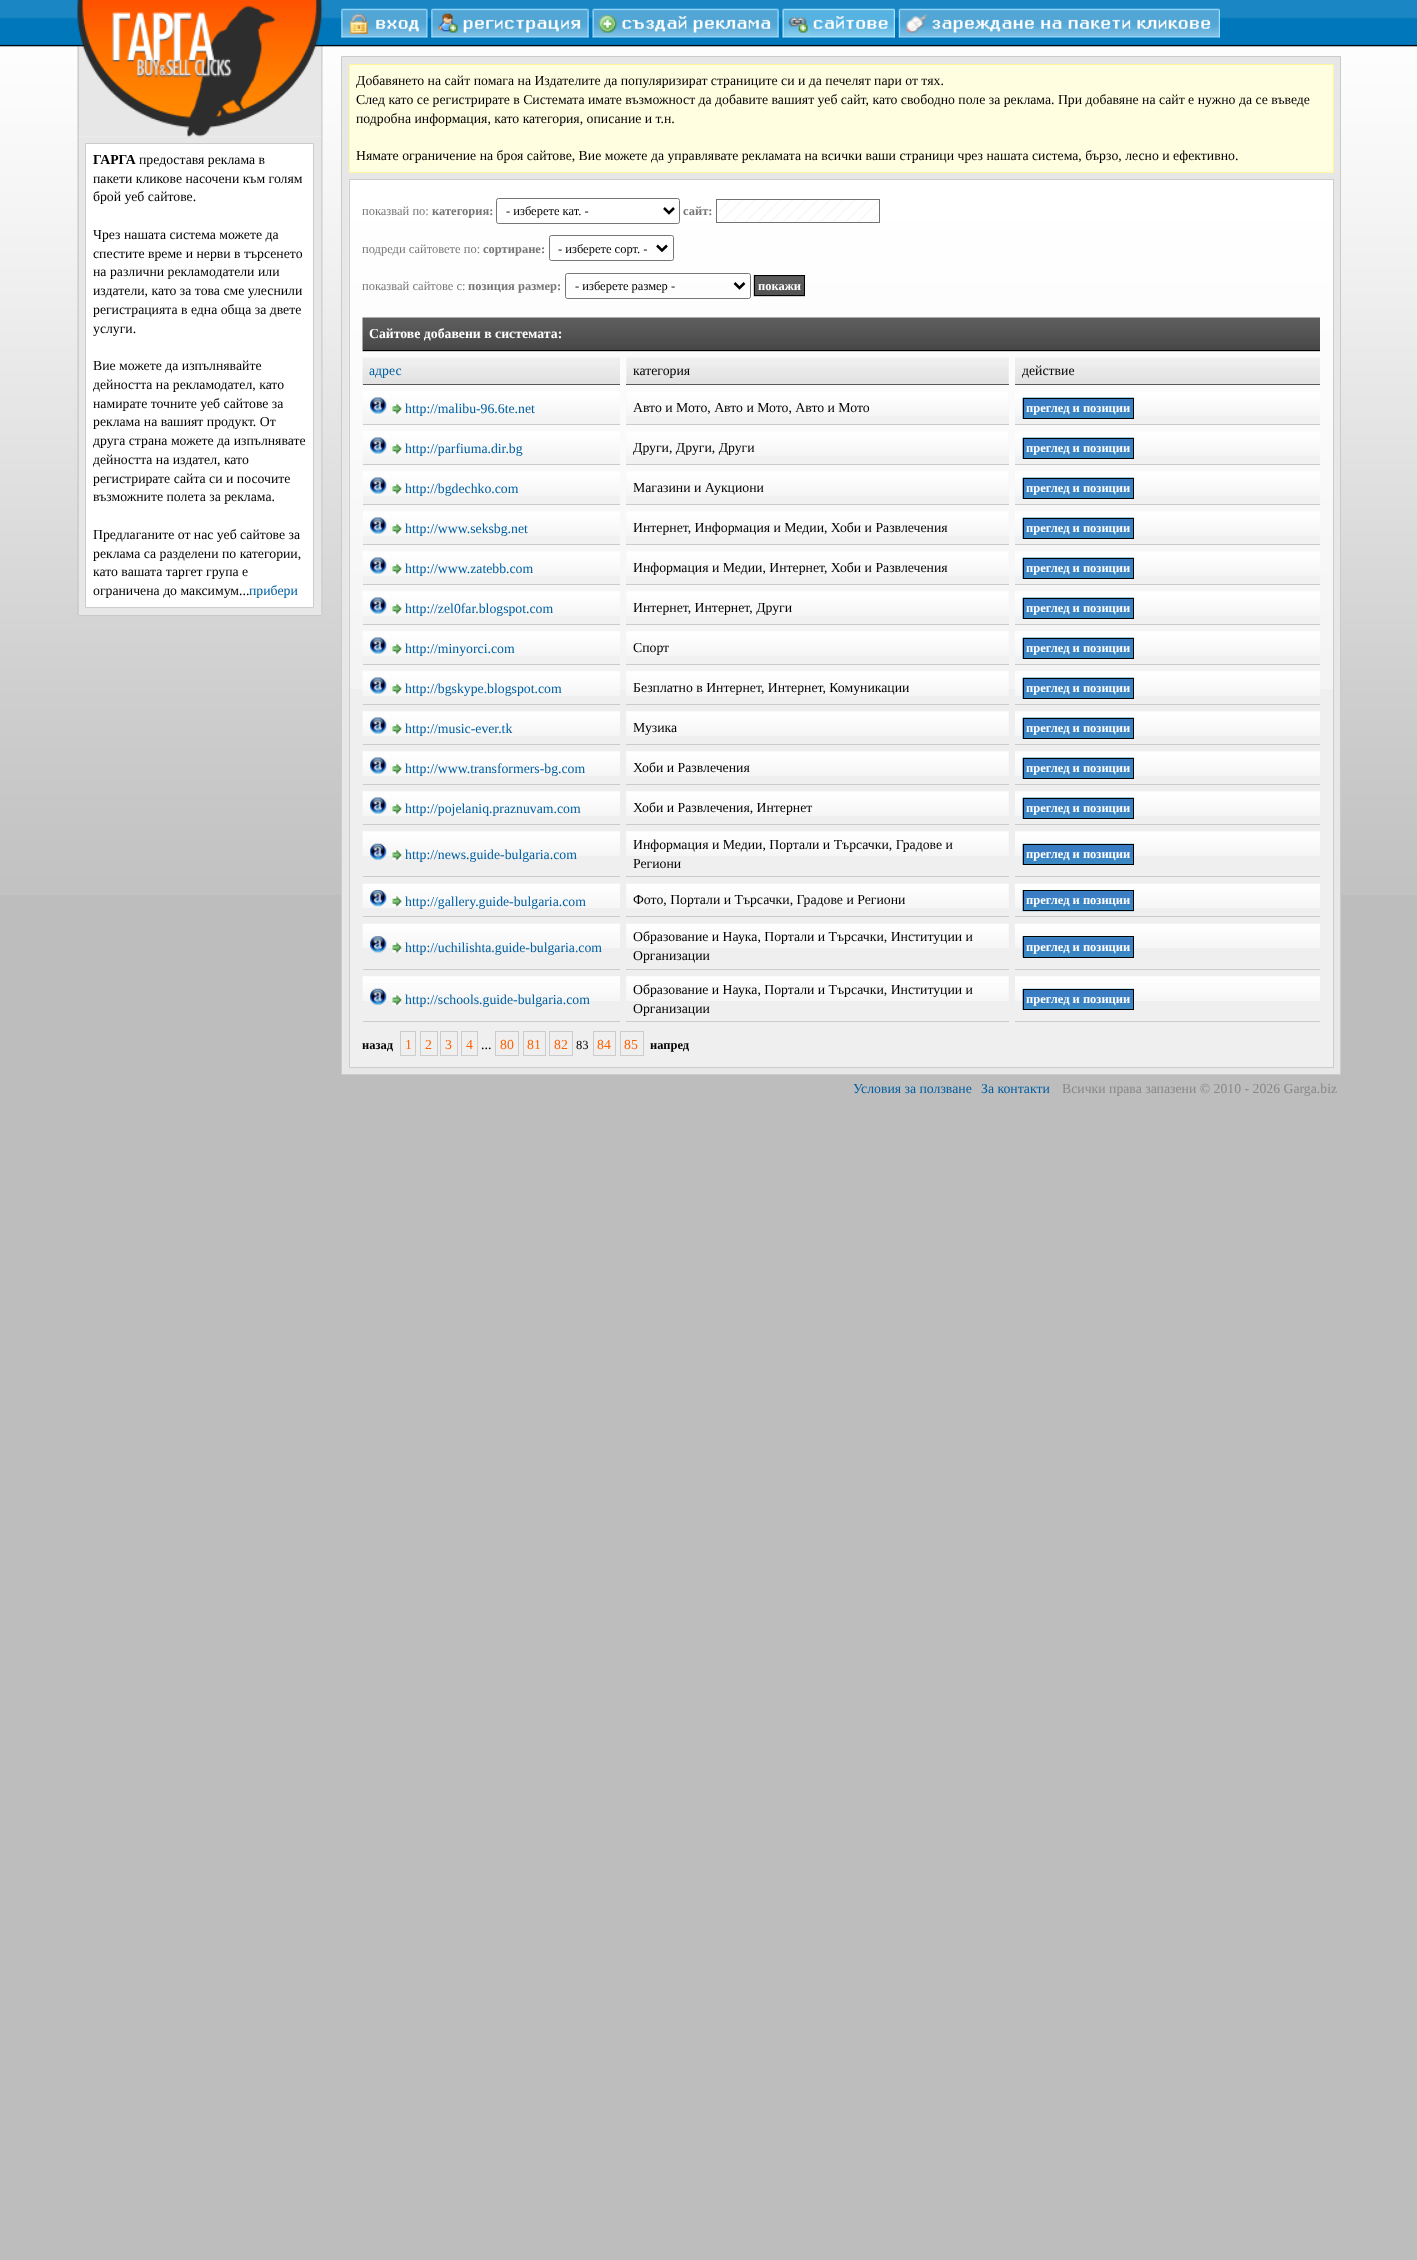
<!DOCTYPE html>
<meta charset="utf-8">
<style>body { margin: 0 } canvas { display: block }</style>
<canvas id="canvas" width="1417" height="2260"></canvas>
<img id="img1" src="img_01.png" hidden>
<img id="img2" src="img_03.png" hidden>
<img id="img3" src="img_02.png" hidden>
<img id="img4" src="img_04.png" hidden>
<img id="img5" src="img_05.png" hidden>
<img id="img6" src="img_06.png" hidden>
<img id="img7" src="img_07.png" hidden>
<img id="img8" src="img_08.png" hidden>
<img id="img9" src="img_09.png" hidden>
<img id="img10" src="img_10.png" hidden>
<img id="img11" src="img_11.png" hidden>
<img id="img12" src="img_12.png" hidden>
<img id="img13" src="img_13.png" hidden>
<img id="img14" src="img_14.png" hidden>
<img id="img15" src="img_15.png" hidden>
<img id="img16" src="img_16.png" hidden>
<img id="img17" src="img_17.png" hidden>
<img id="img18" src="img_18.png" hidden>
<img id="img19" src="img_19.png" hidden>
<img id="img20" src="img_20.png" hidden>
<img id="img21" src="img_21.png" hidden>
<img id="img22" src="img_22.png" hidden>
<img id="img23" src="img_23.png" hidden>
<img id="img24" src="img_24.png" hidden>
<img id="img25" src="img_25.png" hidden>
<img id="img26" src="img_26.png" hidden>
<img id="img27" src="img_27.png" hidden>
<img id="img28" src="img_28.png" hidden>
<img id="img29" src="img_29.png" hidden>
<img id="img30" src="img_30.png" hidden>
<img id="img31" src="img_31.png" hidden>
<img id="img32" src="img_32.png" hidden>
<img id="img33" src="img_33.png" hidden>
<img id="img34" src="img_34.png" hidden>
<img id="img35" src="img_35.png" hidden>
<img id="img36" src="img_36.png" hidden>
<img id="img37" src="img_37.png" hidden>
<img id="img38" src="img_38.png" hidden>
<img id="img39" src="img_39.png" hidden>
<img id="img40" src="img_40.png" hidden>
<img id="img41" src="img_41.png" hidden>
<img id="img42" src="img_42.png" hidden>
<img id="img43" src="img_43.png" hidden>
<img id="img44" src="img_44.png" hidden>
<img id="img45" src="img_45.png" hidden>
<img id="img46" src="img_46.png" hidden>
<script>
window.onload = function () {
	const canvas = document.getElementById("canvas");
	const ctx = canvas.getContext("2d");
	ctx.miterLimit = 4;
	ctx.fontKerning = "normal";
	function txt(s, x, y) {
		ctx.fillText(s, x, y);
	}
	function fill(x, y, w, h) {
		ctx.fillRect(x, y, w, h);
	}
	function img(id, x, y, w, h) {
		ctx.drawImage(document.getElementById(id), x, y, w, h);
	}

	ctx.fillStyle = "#BDBDBD";
	fill(0, 0, 1417, 2260);
	img("img1", 0, 0, 1417, 895);
	img("img2", 77, 136, 246, 481);
	img("img3", 77, 0, 246, 137);
	ctx.fillStyle = "#FFFFFF";
	ctx.beginPath();
	ctx.rect(85.5, 143.5, 228, 464);
	ctx.fill();
	ctx.strokeStyle = "#CCCCCC";
	ctx.stroke();
	img("img4", 77, 615, 246, 2);
	img("img5", 341, 8, 87, 30);
	img("img6", 431, 8, 158, 30);
	img("img7", 592, 8, 187, 30);
	img("img8", 782, 8, 113, 30);
	img("img9", 898, 8, 322, 30);
	ctx.fillStyle = "#E7E7E7";
	ctx.beginPath();
	ctx.rect(341.5, 56.5, 999, 1018);
	ctx.fill();
	ctx.strokeStyle = "#CBCBCB";
	ctx.stroke();
	ctx.fillStyle = "#FFFEE0";
	ctx.beginPath();
	ctx.rect(349.5, 64.5, 984, 108);
	ctx.fill();
	ctx.strokeStyle = "#FFF799";
	ctx.stroke();
	ctx.fillStyle = "#EFEFEF";
	fill(350, 689, 983, 378);
	img("img10", 348, 180, 985, 509);
	ctx.strokeStyle = "#CCCCCC";
	ctx.strokeRect(349.5, 179.5, 984, 888);
	ctx.beginPath();
	ctx.roundRect(496.5, 198.5, 183, 25, 2);
	ctx.strokeStyle = "#767676";
	ctx.stroke();
	ctx.beginPath();
	ctx.moveTo(664, 208);
	ctx.lineTo(669, 213);
	ctx.lineTo(674, 208);
	ctx.strokeStyle = "#000000";
	ctx.lineWidth = 2.5;
	ctx.stroke();
	img("img11", 717, 200, 162, 22);
	ctx.strokeStyle = "#727272";
	ctx.lineWidth = 1;
	ctx.strokeRect(716.5, 199.5, 163, 23);
	ctx.beginPath();
	ctx.roundRect(549.5, 235.5, 124, 25, 2);
	ctx.strokeStyle = "#767676";
	ctx.stroke();
	ctx.beginPath();
	ctx.moveTo(657, 245.5);
	ctx.lineTo(662, 250.5);
	ctx.lineTo(667, 245.5);
	ctx.strokeStyle = "#000000";
	ctx.lineWidth = 2.5;
	ctx.stroke();
	ctx.beginPath();
	ctx.roundRect(565.5, 273.5, 185, 25, 2);
	ctx.strokeStyle = "#767676";
	ctx.lineWidth = 1;
	ctx.stroke();
	ctx.beginPath();
	ctx.moveTo(734.5, 283);
	ctx.lineTo(739.5, 288);
	ctx.lineTo(744.5, 283);
	ctx.strokeStyle = "#000000";
	ctx.lineWidth = 2.5;
	ctx.stroke();
	img("img12", 753, 275, 52, 22);
	ctx.lineWidth = 1;
	ctx.strokeRect(754.5, 275.5, 50, 20);
	img("img13", 362, 317, 958, 35);
	ctx.fillStyle = "#000000";
	fill(363, 350, 957, 1);
	img("img14", 362, 357, 258, 28);
	ctx.fillStyle = "#585858";
	fill(363, 384, 257, 1);
	img("img15", 626, 357, 383, 27);
	fill(626, 384, 383, 1);
	img("img16", 1015, 357, 305, 27);
	fill(1015, 384, 305, 1);
	img("img17", 362, 391, 258, 34);
	ctx.fillStyle = "#CBCBCB";
	fill(363, 424, 257, 1);
	img("img18", 370, 397, 17, 17);
	img("img19", 392, 403, 10, 11);
	ctx.fillStyle = "#F1F1F1";
	fill(626, 391, 383, 33);
	img("img20", 626, 391, 383, 25);
	ctx.fillStyle = "#CBCBCB";
	fill(626, 424, 383, 1);
	ctx.fillStyle = "#F1F1F1";
	fill(1015, 391, 305, 33);
	img("img21", 1015, 391, 305, 25);
	ctx.fillStyle = "#CBCBCB";
	fill(1015, 424, 305, 1);
	img("img22", 1022, 397, 112, 22);
	ctx.strokeRect(1023.5, 398.5, 110, 20);
	img("img23", 362, 431, 258, 34);
	fill(363, 464, 257, 1);
	img("img18", 370, 437, 17, 17);
	img("img19", 392, 443, 10, 11);
	ctx.fillStyle = "#F1F1F1";
	fill(626, 431, 383, 33);
	img("img20", 626, 431, 383, 25);
	ctx.fillStyle = "#CBCBCB";
	fill(626, 464, 383, 1);
	ctx.fillStyle = "#F1F1F1";
	fill(1015, 431, 305, 33);
	img("img21", 1015, 431, 305, 25);
	ctx.fillStyle = "#CBCBCB";
	fill(1015, 464, 305, 1);
	img("img22", 1022, 437, 112, 22);
	ctx.strokeRect(1023.5, 438.5, 110, 20);
	ctx.fillStyle = "#F1F1F1";
	fill(363, 471, 257, 33);
	img("img24", 363, 471, 257, 25);
	ctx.fillStyle = "#CBCBCB";
	fill(363, 504, 257, 1);
	img("img18", 370, 477, 17, 17);
	img("img19", 392, 483, 10, 11);
	ctx.fillStyle = "#F1F1F1";
	fill(626, 471, 383, 33);
	img("img20", 626, 471, 383, 25);
	ctx.fillStyle = "#CBCBCB";
	fill(626, 504, 383, 1);
	ctx.fillStyle = "#F1F1F1";
	fill(1015, 471, 305, 33);
	img("img21", 1015, 471, 305, 25);
	ctx.fillStyle = "#CBCBCB";
	fill(1015, 504, 305, 1);
	img("img22", 1022, 477, 112, 22);
	ctx.strokeRect(1023.5, 478.5, 110, 20);
	ctx.fillStyle = "#F1F1F1";
	fill(363, 511, 257, 33);
	img("img24", 363, 511, 257, 25);
	ctx.fillStyle = "#CBCBCB";
	fill(363, 544, 257, 1);
	img("img18", 370, 517, 17, 17);
	img("img19", 392, 523, 10, 11);
	ctx.fillStyle = "#F1F1F1";
	fill(626, 511, 383, 33);
	img("img20", 626, 511, 383, 25);
	ctx.fillStyle = "#CBCBCB";
	fill(626, 544, 383, 1);
	ctx.fillStyle = "#F1F1F1";
	fill(1015, 511, 305, 33);
	img("img21", 1015, 511, 305, 25);
	ctx.fillStyle = "#CBCBCB";
	fill(1015, 544, 305, 1);
	img("img22", 1022, 517, 112, 22);
	ctx.strokeRect(1023.5, 518.5, 110, 20);
	ctx.fillStyle = "#F1F1F1";
	fill(363, 551, 257, 33);
	img("img25", 362, 551, 258, 25);
	ctx.fillStyle = "#CBCBCB";
	fill(363, 584, 257, 1);
	img("img26", 370, 557, 17, 17);
	img("img19", 392, 563, 10, 11);
	ctx.fillStyle = "#F1F1F1";
	fill(626, 551, 383, 33);
	img("img20", 626, 551, 383, 25);
	ctx.fillStyle = "#CBCBCB";
	fill(626, 584, 383, 1);
	ctx.fillStyle = "#F1F1F1";
	fill(1015, 551, 305, 33);
	img("img21", 1015, 551, 305, 25);
	ctx.fillStyle = "#CBCBCB";
	fill(1015, 584, 305, 1);
	img("img22", 1022, 557, 112, 22);
	ctx.strokeRect(1023.5, 558.5, 110, 20);
	ctx.fillStyle = "#F1F1F1";
	fill(363, 591, 257, 33);
	img("img27", 362, 591, 258, 25);
	ctx.fillStyle = "#CBCBCB";
	fill(363, 624, 257, 1);
	img("img18", 370, 597, 17, 17);
	img("img19", 392, 603, 10, 11);
	ctx.fillStyle = "#F1F1F1";
	fill(626, 591, 383, 33);
	img("img20", 626, 591, 383, 25);
	ctx.fillStyle = "#CBCBCB";
	fill(626, 624, 383, 1);
	ctx.fillStyle = "#F1F1F1";
	fill(1015, 591, 305, 33);
	img("img21", 1015, 591, 305, 25);
	ctx.fillStyle = "#CBCBCB";
	fill(1015, 624, 305, 1);
	img("img22", 1022, 597, 112, 22);
	ctx.strokeRect(1023.5, 598.5, 110, 20);
	ctx.fillStyle = "#F1F1F1";
	fill(363, 631, 257, 33);
	img("img28", 362, 631, 258, 25);
	ctx.fillStyle = "#CBCBCB";
	fill(363, 664, 257, 1);
	img("img18", 370, 637, 17, 17);
	img("img19", 392, 643, 10, 11);
	ctx.fillStyle = "#F1F1F1";
	fill(626, 631, 383, 33);
	img("img20", 626, 631, 383, 25);
	ctx.fillStyle = "#CBCBCB";
	fill(626, 664, 383, 1);
	ctx.fillStyle = "#F1F1F1";
	fill(1015, 631, 305, 33);
	img("img21", 1015, 631, 305, 25);
	ctx.fillStyle = "#CBCBCB";
	fill(1015, 664, 305, 1);
	img("img29", 1022, 637, 112, 22);
	ctx.strokeRect(1023.5, 638.5, 110, 20);
	ctx.fillStyle = "#F1F1F1";
	fill(363, 671, 257, 18);
	img("img30", 362, 671, 258, 25);
	ctx.fillStyle = "#CBCBCB";
	fill(363, 704, 257, 1);
	img("img18", 370, 677, 17, 17);
	img("img19", 392, 683, 10, 11);
	ctx.fillStyle = "#F1F1F1";
	fill(626, 671, 383, 18);
	img("img20", 626, 671, 383, 25);
	ctx.fillStyle = "#CBCBCB";
	fill(626, 704, 383, 1);
	ctx.fillStyle = "#F1F1F1";
	fill(1015, 671, 305, 18);
	img("img21", 1015, 671, 305, 25);
	ctx.fillStyle = "#CBCBCB";
	fill(1015, 704, 305, 1);
	img("img29", 1022, 677, 112, 22);
	ctx.strokeRect(1023.5, 678.5, 110, 20);
	img("img31", 362, 711, 258, 25);
	fill(363, 744, 257, 1);
	img("img18", 370, 717, 17, 17);
	img("img19", 392, 723, 10, 11);
	img("img20", 626, 711, 383, 25);
	fill(626, 744, 383, 1);
	img("img21", 1015, 711, 305, 25);
	fill(1015, 744, 305, 1);
	img("img32", 1022, 717, 112, 22);
	ctx.strokeRect(1023.5, 718.5, 110, 20);
	img("img31", 362, 751, 258, 25);
	fill(363, 784, 257, 1);
	img("img26", 370, 757, 17, 17);
	img("img19", 392, 763, 10, 11);
	img("img20", 626, 751, 383, 25);
	fill(626, 784, 383, 1);
	img("img21", 1015, 751, 305, 25);
	fill(1015, 784, 305, 1);
	img("img33", 1022, 757, 112, 22);
	ctx.strokeRect(1023.5, 758.5, 110, 20);
	img("img31", 362, 791, 258, 25);
	fill(363, 824, 257, 1);
	img("img18", 370, 797, 17, 17);
	img("img19", 392, 803, 10, 11);
	img("img20", 626, 791, 383, 25);
	fill(626, 824, 383, 1);
	img("img21", 1015, 791, 305, 25);
	fill(1015, 824, 305, 1);
	img("img22", 1022, 797, 112, 22);
	ctx.strokeRect(1023.5, 798.5, 110, 20);
	img("img31", 362, 831, 258, 25);
	fill(363, 876, 257, 1);
	img("img34", 370, 843, 17, 17);
	img("img35", 392, 850, 10, 10);
	img("img20", 626, 831, 383, 25);
	fill(626, 876, 383, 1);
	img("img21", 1015, 831, 305, 25);
	fill(1015, 876, 305, 1);
	img("img36", 1022, 843, 112, 22);
	ctx.strokeRect(1023.5, 844.5, 110, 20);
	img("img37", 362, 883, 258, 25);
	fill(363, 916, 257, 1);
	img("img38", 370, 890, 17, 17);
	img("img39", 392, 896, 10, 11);
	img("img40", 626, 883, 383, 25);
	fill(626, 916, 383, 1);
	img("img41", 1015, 883, 305, 25);
	fill(1015, 916, 305, 1);
	img("img42", 1022, 890, 112, 22);
	ctx.strokeRect(1023.5, 890.5, 110, 20);
	img("img37", 362, 923, 258, 25);
	fill(363, 969, 257, 1);
	img("img43", 370, 936, 17, 17);
	img("img44", 392, 942, 10, 11);
	img("img40", 626, 923, 383, 25);
	fill(626, 969, 383, 1);
	img("img41", 1015, 923, 305, 25);
	fill(1015, 969, 305, 1);
	img("img45", 1022, 936, 111, 22);
	ctx.strokeRect(1023.5, 936.5, 110, 21);
	img("img31", 362, 976, 258, 25);
	fill(363, 1021, 257, 1);
	img("img34", 370, 988, 17, 17);
	img("img35", 392, 995, 10, 10);
	img("img20", 626, 976, 383, 25);
	fill(626, 1021, 383, 1);
	img("img21", 1015, 976, 305, 25);
	fill(1015, 1021, 305, 1);
	img("img46", 1022, 988, 112, 22);
	ctx.strokeRect(1023.5, 989.5, 110, 20);
	ctx.strokeStyle = "#CCCCCC";
	ctx.strokeRect(400.5, 1031.5, 15, 24);
	ctx.strokeRect(420.5, 1031.5, 17, 24);
	ctx.strokeRect(440.5, 1031.5, 17, 24);
	ctx.strokeRect(461.5, 1031.5, 16, 24);
	ctx.strokeRect(495.5, 1031.5, 23, 24);
	ctx.strokeRect(523.5, 1031.5, 22, 24);
	ctx.strokeRect(549.5, 1031.5, 23, 24);
	ctx.strokeRect(593.5, 1031.5, 22, 24);
	ctx.strokeRect(620.5, 1031.5, 23, 24);
	ctx.font = "bold 13.75px Liberation Serif";
	ctx.fillStyle = "#000000";
	txt("ГАРГА", 93, 164);
	ctx.font = "13.75px Liberation Serif";
	txt("предоставя реклама в", 139, 164);
	txt("пакети кликове насочени към голям", 93, 183);
	txt("брой уеб сайтове.", 93, 201);
	txt("Чрез нашата система можете да", 93, 239);
	txt("спестите време и нерви в търсенето", 93, 258);
	txt("на различни рекламодатели или", 93, 276);
	txt("издатели, като за това сме улеснили", 93, 295);
	txt("регистрацията в една обща за двете", 93, 314);
	txt("услуги.", 93, 333);
	txt("Вие можете да изпълнявайте", 93, 370);
	txt("дейността на рекламодател, като", 93, 389);
	txt("намирате точните уеб сайтове за", 93, 408);
	txt("реклама на вашият продукт. От", 93, 426);
	txt("друга страна можете да изпълнявате", 93, 445);
	txt("дейността на издател, като", 93, 464);
	txt("регистрирате сайта си и посочите", 93, 483);
	txt("възможните полета за реклама.", 93, 501);
	txt("Предлаганите от нас уеб сайтове за", 93, 539);
	txt("реклама са разделени по категории,", 93, 558);
	txt("като вашата таргет група е", 93, 576);
	txt("ограничена до максимум...", 93, 595);
	ctx.fillStyle = "#005FA2";
	txt("прибери", 249, 595);
	ctx.fillStyle = "#000000";
	txt("Добавянето на сайт помага на Издателите да популяризират страниците си и да печелят пари от тях.", 356, 85);
	txt("След като се регистрирате в Системата имате възможност да добавите вашият уеб сайт, като свободно поле за реклама. При добавяне на сайт е нужно да се въведе", 356, 104);
	txt("подробна информация, като категория, описание и т.н.", 356, 123);
	txt("Нямате ограничение на броя сайтове, Вие можете да управлявате рекламата на всички ваши страници чрез нашата система, бързо, лесно и ефективно.", 356, 160);
	ctx.font = "12.5px Liberation Serif";
	ctx.fillStyle = "#777777";
	txt("показвай по:", 362, 215);
	ctx.font = "bold 12.5px Liberation Serif";
	txt("категория:", 432, 215);
	ctx.font = "12.5px Liberation Serif";
	ctx.fillStyle = "#000000";
	txt("- изберете кат. -", 506, 215);
	ctx.font = "bold 12.5px Liberation Serif";
	ctx.fillStyle = "#777777";
	txt("сайт:", 683, 215);
	ctx.font = "12.5px Liberation Serif";
	txt("подреди сайтовете по:", 362, 253);
	ctx.font = "bold 12.5px Liberation Serif";
	txt("сортиране:", 483, 253);
	ctx.font = "12.5px Liberation Serif";
	ctx.fillStyle = "#000000";
	txt("- изберете сорт. -", 558, 253);
	ctx.fillStyle = "#777777";
	txt("показвай сайтове с:", 362, 290);
	ctx.font = "bold 12.5px Liberation Serif";
	txt("позиция размер:", 468, 290);
	ctx.font = "12.5px Liberation Serif";
	ctx.fillStyle = "#000000";
	txt("- изберете размер -", 575, 290);
	ctx.font = "bold 12.5px Liberation Serif";
	ctx.fillStyle = "#FFFFFF";
	txt("покажи", 758, 290);
	ctx.font = "bold 13.75px Liberation Serif";
	txt("Сайтове добавени в системата:", 369, 338);
	ctx.font = "13.75px Liberation Serif";
	ctx.fillStyle = "#005FA2";
	txt("адрес", 369, 375);
	ctx.fillStyle = "#000000";
	txt("категория", 633, 375);
	txt("действие", 1022, 375);
	ctx.fillStyle = "#005FA2";
	txt("http://malibu-96.6te.net", 405, 413);
	ctx.fillStyle = "#000000";
	txt("Авто и Мото, Авто и Мото, Авто и Мото", 633, 412);
	ctx.font = "bold 12.5px Liberation Serif";
	ctx.fillStyle = "#FFFFFF";
	txt("преглед и позиции", 1026, 412);
	ctx.font = "13.75px Liberation Serif";
	ctx.fillStyle = "#005FA2";
	txt("http://parfiuma.dir.bg", 405, 453);
	ctx.fillStyle = "#000000";
	txt("Други, Други, Други", 633, 452);
	ctx.font = "bold 12.5px Liberation Serif";
	ctx.fillStyle = "#FFFFFF";
	txt("преглед и позиции", 1026, 452);
	ctx.font = "13.75px Liberation Serif";
	ctx.fillStyle = "#005FA2";
	txt("http://bgdechko.com", 405, 493);
	ctx.fillStyle = "#000000";
	txt("Магазини и Аукциони", 633, 492);
	ctx.font = "bold 12.5px Liberation Serif";
	ctx.fillStyle = "#FFFFFF";
	txt("преглед и позиции", 1026, 492);
	ctx.font = "13.75px Liberation Serif";
	ctx.fillStyle = "#005FA2";
	txt("http://www.seksbg.net", 405, 533);
	ctx.fillStyle = "#000000";
	txt("Интернет, Информация и Медии, Хоби и Развлечения", 633, 532);
	ctx.font = "bold 12.5px Liberation Serif";
	ctx.fillStyle = "#FFFFFF";
	txt("преглед и позиции", 1026, 532);
	ctx.font = "13.75px Liberation Serif";
	ctx.fillStyle = "#005FA2";
	txt("http://www.zatebb.com", 405, 573);
	ctx.fillStyle = "#000000";
	txt("Информация и Медии, Интернет, Хоби и Развлечения", 633, 572);
	ctx.font = "bold 12.5px Liberation Serif";
	ctx.fillStyle = "#FFFFFF";
	txt("преглед и позиции", 1026, 572);
	ctx.font = "13.75px Liberation Serif";
	ctx.fillStyle = "#005FA2";
	txt("http://zel0far.blogspot.com", 405, 613);
	ctx.fillStyle = "#000000";
	txt("Интернет, Интернет, Други", 633, 612);
	ctx.font = "bold 12.5px Liberation Serif";
	ctx.fillStyle = "#FFFFFF";
	txt("преглед и позиции", 1026, 612);
	ctx.font = "13.75px Liberation Serif";
	ctx.fillStyle = "#005FA2";
	txt("http://minyorci.com", 405, 653);
	ctx.fillStyle = "#000000";
	txt("Спорт", 633, 652);
	ctx.font = "bold 12.5px Liberation Serif";
	ctx.fillStyle = "#FFFFFF";
	txt("преглед и позиции", 1026, 652);
	ctx.font = "13.75px Liberation Serif";
	ctx.fillStyle = "#005FA2";
	txt("http://bgskype.blogspot.com", 405, 693);
	ctx.fillStyle = "#000000";
	txt("Безплатно в Интернет, Интернет, Комуникации", 633, 692);
	ctx.font = "bold 12.5px Liberation Serif";
	ctx.fillStyle = "#FFFFFF";
	txt("преглед и позиции", 1026, 692);
	ctx.font = "13.75px Liberation Serif";
	ctx.fillStyle = "#005FA2";
	txt("http://music-ever.tk", 405, 733);
	ctx.fillStyle = "#000000";
	txt("Музика", 633, 732);
	ctx.font = "bold 12.5px Liberation Serif";
	ctx.fillStyle = "#FFFFFF";
	txt("преглед и позиции", 1026, 732);
	ctx.font = "13.75px Liberation Serif";
	ctx.fillStyle = "#005FA2";
	txt("http://www.transformers-bg.com", 405, 773);
	ctx.fillStyle = "#000000";
	txt("Хоби и Развлечения", 633, 772);
	ctx.font = "bold 12.5px Liberation Serif";
	ctx.fillStyle = "#FFFFFF";
	txt("преглед и позиции", 1026, 772);
	ctx.font = "13.75px Liberation Serif";
	ctx.fillStyle = "#005FA2";
	txt("http://pojelaniq.praznuvam.com", 405, 813);
	ctx.fillStyle = "#000000";
	txt("Хоби и Развлечения, Интернет", 633, 812);
	ctx.font = "bold 12.5px Liberation Serif";
	ctx.fillStyle = "#FFFFFF";
	txt("преглед и позиции", 1026, 812);
	ctx.font = "13.75px Liberation Serif";
	ctx.fillStyle = "#005FA2";
	txt("http://news.guide-bulgaria.com", 405, 859);
	ctx.fillStyle = "#000000";
	txt("Информация и Медии, Портали и Търсачки, Градове и", 633, 849);
	txt("Региони", 633, 868);
	ctx.font = "bold 12.5px Liberation Serif";
	ctx.fillStyle = "#FFFFFF";
	txt("преглед и позиции", 1026, 858);
	ctx.font = "13.75px Liberation Serif";
	ctx.fillStyle = "#005FA2";
	txt("http://gallery.guide-bulgaria.com", 405, 906);
	ctx.fillStyle = "#000000";
	txt("Фото, Портали и Търсачки, Градове и Региони", 633, 904);
	ctx.font = "bold 12.5px Liberation Serif";
	ctx.fillStyle = "#FFFFFF";
	txt("преглед и позиции", 1026, 904);
	ctx.font = "13.75px Liberation Serif";
	ctx.fillStyle = "#005FA2";
	txt("http://uchilishta.guide-bulgaria.com", 405, 952);
	ctx.fillStyle = "#000000";
	txt("Образование и Наука, Портали и Търсачки, Институции и", 633, 941);
	txt("Организации", 633, 960);
	ctx.font = "bold 12.5px Liberation Serif";
	ctx.fillStyle = "#FFFFFF";
	txt("преглед и позиции", 1026, 951);
	ctx.font = "13.75px Liberation Serif";
	ctx.fillStyle = "#005FA2";
	txt("http://schools.guide-bulgaria.com", 405, 1004);
	ctx.fillStyle = "#000000";
	txt("Образование и Наука, Портали и Търсачки, Институции и", 633, 994);
	txt("Организации", 633, 1013);
	ctx.font = "bold 12.5px Liberation Serif";
	ctx.fillStyle = "#FFFFFF";
	txt("преглед и позиции", 1026, 1003);
	ctx.fillStyle = "#000000";
	txt("назад", 362, 1049);
	ctx.font = "13.75px Liberation Serif";
	ctx.fillStyle = "#FF6000";
	txt("1", 405, 1049);
	txt("2", 425, 1049);
	txt("3", 445, 1049);
	txt("4", 466, 1049);
	ctx.fillStyle = "#000000";
	txt("...", 481, 1049);
	ctx.fillStyle = "#FF6000";
	txt("80", 500, 1049);
	txt("81", 527, 1049);
	txt("82", 554, 1049);
	ctx.font = "12.5px Liberation Serif";
	ctx.fillStyle = "#000000";
	txt("83", 576, 1049);
	ctx.font = "13.75px Liberation Serif";
	ctx.fillStyle = "#FF6000";
	txt("84", 597, 1049);
	txt("85", 624, 1049);
	ctx.font = "bold 12.5px Liberation Serif";
	ctx.fillStyle = "#000000";
	txt("напред", 650, 1049);
	ctx.font = "13.75px Liberation Serif";
	ctx.fillStyle = "#005FA2";
	txt("Условия за ползване", 853, 1093);
	txt("За контакти", 981, 1093);
	ctx.fillStyle = "#888888";
	txt("Всички права запазени © 2010 - 2026 Garga.biz", 1062, 1093);
};
</script>
